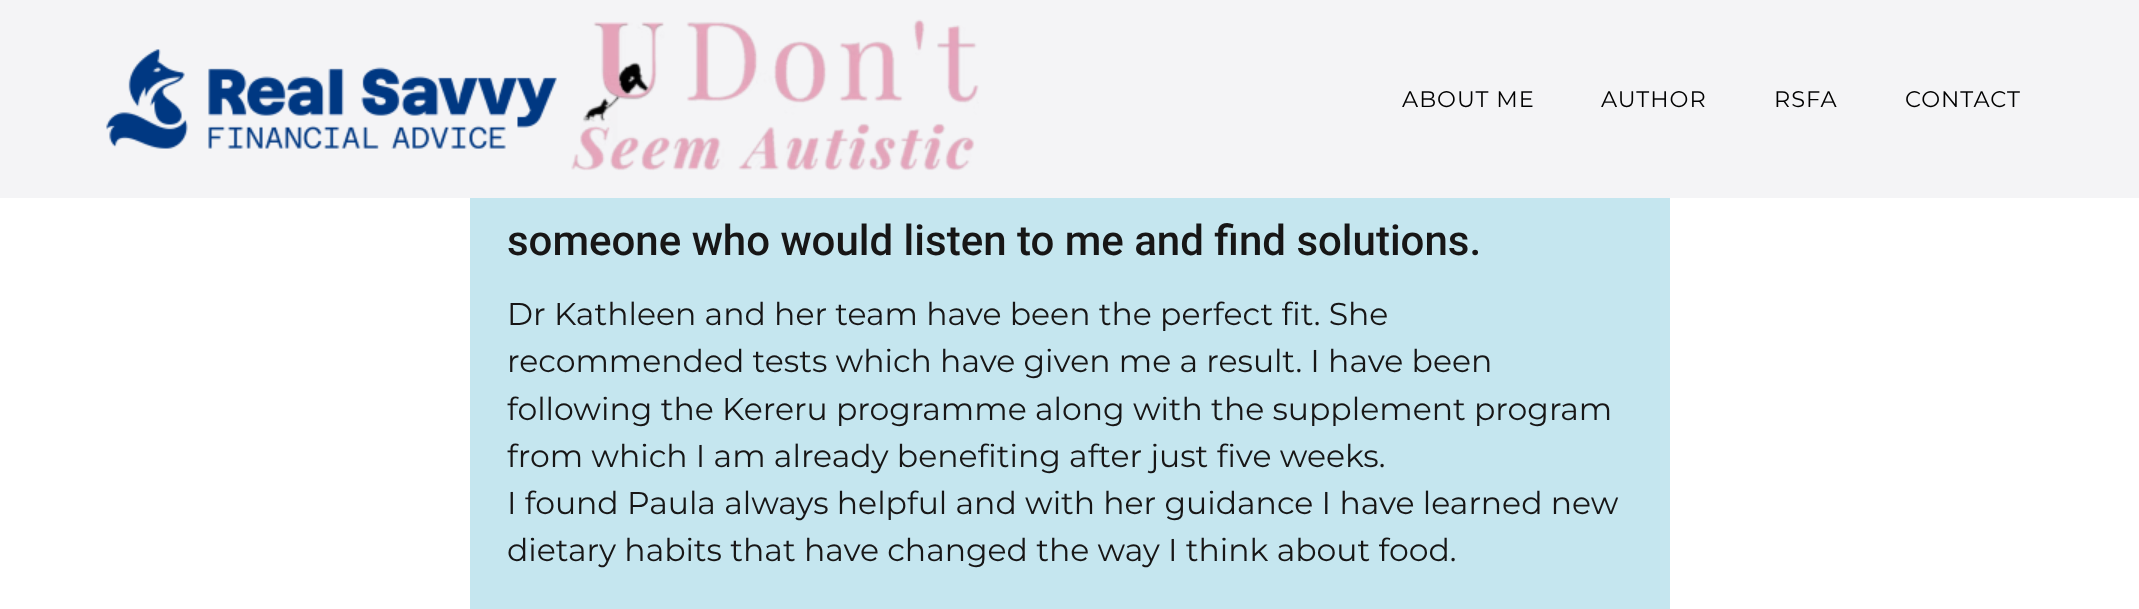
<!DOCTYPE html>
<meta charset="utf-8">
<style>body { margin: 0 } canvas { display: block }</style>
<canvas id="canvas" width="2139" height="609"></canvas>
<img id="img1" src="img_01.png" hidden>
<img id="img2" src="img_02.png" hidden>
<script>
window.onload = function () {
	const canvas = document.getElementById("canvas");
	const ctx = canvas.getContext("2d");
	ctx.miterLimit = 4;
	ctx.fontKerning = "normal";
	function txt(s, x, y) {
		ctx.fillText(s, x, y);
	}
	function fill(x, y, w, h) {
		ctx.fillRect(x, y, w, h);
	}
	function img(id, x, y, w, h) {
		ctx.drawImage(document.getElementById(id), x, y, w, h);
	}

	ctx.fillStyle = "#FFFFFF";
	fill(0, 0, 2139, 609);
	ctx.fillStyle = "#F4F4F6";
	fill(0, 0, 2139, 198);
	img("img1", 106, 49, 451, 100);
	img("img2", 571, 19, 408, 152);
	ctx.fillStyle = "#C5E6EF";
	fill(470, 198, 1200, 411);
	ctx.letterSpacing = "1px";
	ctx.font = "22.5px Montserrat";
	ctx.fillStyle = "#000000";
	txt("ABOUT ME", 1402, 107);
	txt("AUTHOR", 1601, 107);
	txt("RSFA", 1774, 107);
	txt("CONTACT", 1905, 107);
	ctx.letterSpacing = "0px";
	ctx.font = "500 42px Roboto";
	ctx.fillStyle = "#171616";
	txt("someone who would listen to me and find solutions.", 507, 255);
	ctx.font = "31.5px Montserrat";
	txt("Dr Kathleen and her team have been the perfect fit. She", 507, 325);
	txt("recommended tests which have given me a result. I have been", 507, 372);
	txt("following the Kereru programme along with the supplement program", 507, 420);
	txt("from which I am already benefiting after just five weeks.", 507, 467);
	txt("I found Paula always helpful and with her guidance I have learned new", 507, 514);
	txt("dietary habits that have changed the way I think about food.", 507, 561);
};
</script>
